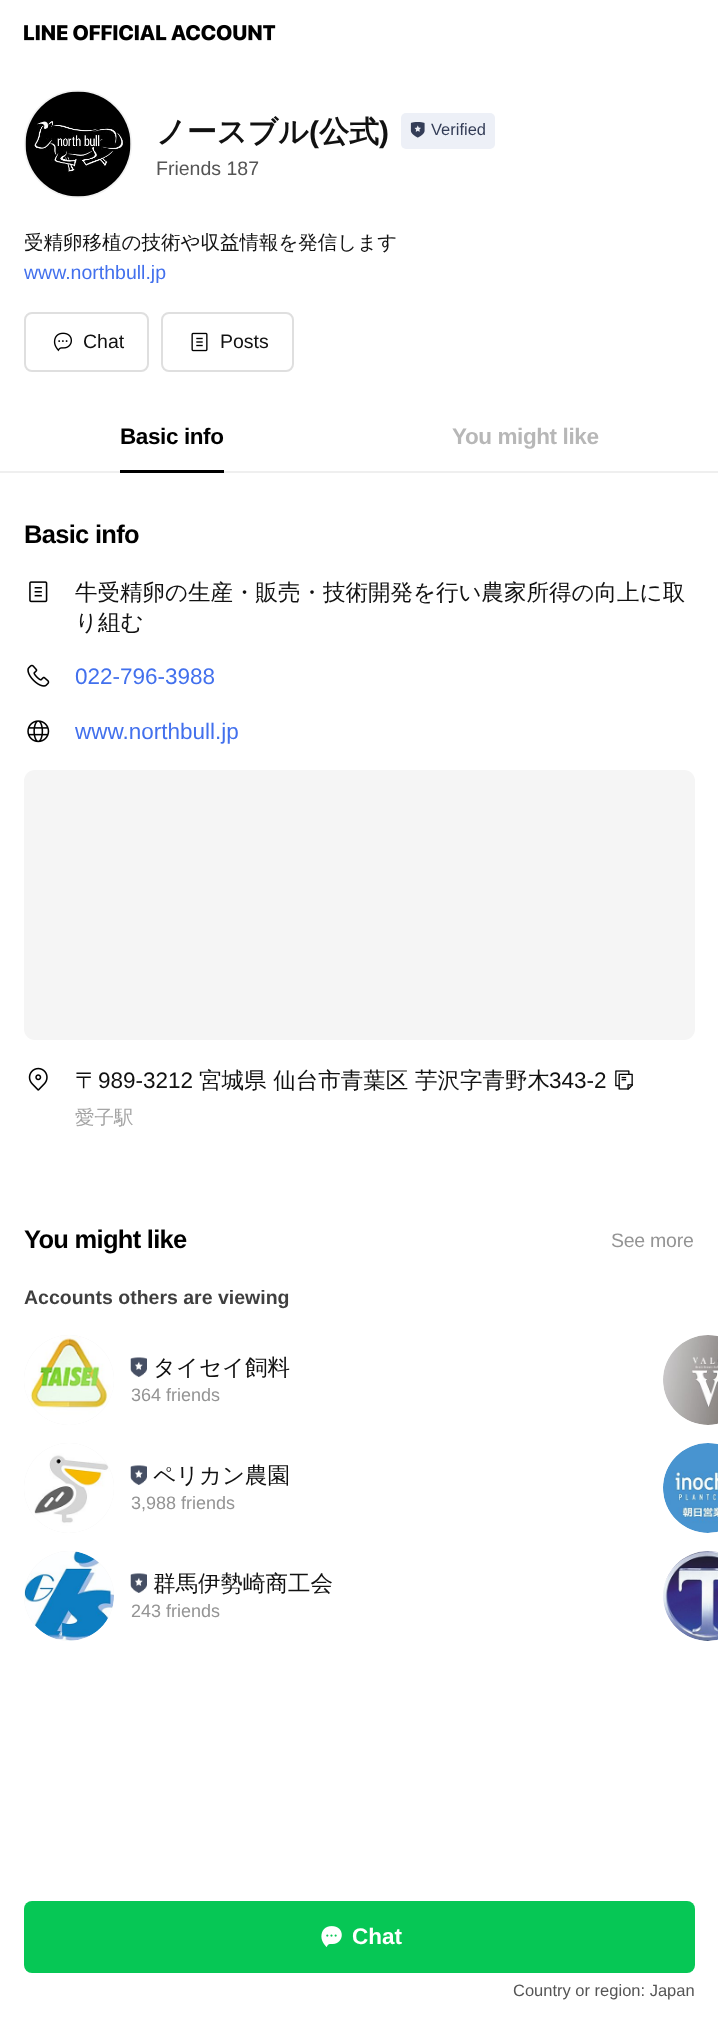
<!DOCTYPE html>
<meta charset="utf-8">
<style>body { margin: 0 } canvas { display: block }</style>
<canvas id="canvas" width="718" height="2017"></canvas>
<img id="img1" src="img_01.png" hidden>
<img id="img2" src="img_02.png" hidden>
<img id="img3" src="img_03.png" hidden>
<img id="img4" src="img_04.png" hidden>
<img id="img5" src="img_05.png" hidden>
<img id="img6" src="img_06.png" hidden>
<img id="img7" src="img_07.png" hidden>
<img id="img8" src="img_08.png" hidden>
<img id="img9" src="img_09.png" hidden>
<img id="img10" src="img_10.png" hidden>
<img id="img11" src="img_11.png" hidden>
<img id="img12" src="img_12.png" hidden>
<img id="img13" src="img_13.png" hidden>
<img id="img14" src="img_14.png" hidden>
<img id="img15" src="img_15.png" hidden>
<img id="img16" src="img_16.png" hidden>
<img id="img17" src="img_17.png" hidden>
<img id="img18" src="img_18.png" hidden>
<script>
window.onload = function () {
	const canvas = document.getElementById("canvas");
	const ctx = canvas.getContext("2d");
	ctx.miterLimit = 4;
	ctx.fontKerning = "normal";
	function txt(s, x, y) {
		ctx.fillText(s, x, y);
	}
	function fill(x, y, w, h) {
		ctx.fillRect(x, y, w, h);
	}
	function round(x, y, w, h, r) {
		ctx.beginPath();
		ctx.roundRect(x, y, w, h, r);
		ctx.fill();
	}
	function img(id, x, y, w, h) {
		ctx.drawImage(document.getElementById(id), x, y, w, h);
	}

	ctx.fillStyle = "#FFFFFF";
	fill(0, 0, 718, 2017);
	img("img1", 24, 24, 252, 17);
	ctx.beginPath();
	ctx.arc(78, 144, 53, 0, Math.PI * 2);
	ctx.strokeStyle = "#F2F2F2";
	ctx.lineWidth = 2;
	ctx.stroke();
	img("img2", 25, 91, 106, 106);
	ctx.fillStyle = "#EDF0F7";
	round(401, 113, 94, 36, 5);
	img("img3", 410, 122, 15, 16);
	ctx.beginPath();
	ctx.roundRect(25, 313, 123, 58, 7);
	ctx.strokeStyle = "#DFDFDF";
	ctx.stroke();
	img("img4", 53, 332, 19, 20);
	ctx.beginPath();
	ctx.roundRect(162, 313, 131, 58, 7);
	ctx.stroke();
	img("img5", 191, 332, 17, 20);
	ctx.fillStyle = "#EFEFEF";
	fill(0, 471, 718, 2);
	ctx.fillStyle = "#000000";
	fill(120, 470, 104, 3);
	img("img6", 29, 581, 19, 22);
	img("img7", 27, 664, 23, 23);
	img("img8", 27, 720, 23, 23);
	ctx.fillStyle = "#F5F5F5";
	round(24, 770, 671, 270, 11);
	img("img9", 28, 1067, 20, 24);
	img("img10", 615, 1070, 18, 20);
	ctx.beginPath();
	ctx.arc(69, 1380, 45, 0, Math.PI * 2);
	ctx.fill();
	img("img11", 24, 1335, 90, 90);
	img("img12", 130, 1357, 17, 20);
	ctx.beginPath();
	ctx.arc(69, 1488, 45, 0, Math.PI * 2);
	ctx.fill();
	img("img13", 24, 1443, 90, 90);
	img("img12", 130, 1465, 17, 20);
	ctx.beginPath();
	ctx.arc(69, 1596, 45, 0, Math.PI * 2);
	ctx.fill();
	img("img14", 24, 1551, 90, 90);
	img("img12", 130, 1573, 17, 20);
	ctx.beginPath();
	ctx.arc(708, 1380, 45, 0, Math.PI * 2);
	ctx.fill();
	img("img15", 663, 1335, 55, 90);
	ctx.beginPath();
	ctx.arc(708, 1488, 45, 0, Math.PI * 2);
	ctx.fill();
	img("img16", 663, 1443, 55, 90);
	ctx.beginPath();
	ctx.arc(708, 1596, 45, 0, Math.PI * 2);
	ctx.fill();
	img("img17", 663, 1551, 55, 90);
	ctx.fillStyle = "#06C755";
	round(24, 1901, 671, 72, 8);
	img("img18", 321, 1926, 21, 21);
	ctx.font = "bold 30px WenQuanYi Zen Hei";
	ctx.fillStyle = "#111111";
	txt("ノースブル", 156, 142);
	ctx.font = "bold 30px Liberation Sans";
	txt("(", 309, 142);
	ctx.font = "bold 30px WenQuanYi Zen Hei";
	txt("公式", 319, 142);
	ctx.font = "bold 30px Liberation Sans";
	txt(")", 379, 142);
	ctx.font = "16.5px Liberation Sans";
	ctx.fillStyle = "#343D57";
	txt("Verified", 431, 135);
	ctx.font = "19.5px Liberation Sans";
	ctx.fillStyle = "#555555";
	txt("Friends 187", 156, 175);
	ctx.font = "500 19.5px WenQuanYi Zen Hei";
	ctx.fillStyle = "#111111";
	txt("受精卵移植の技術や収益情報を発信します", 24, 249);
	ctx.font = "19.5px Liberation Sans";
	ctx.fillStyle = "#4270ED";
	txt("www.northbull.jp", 24, 279);
	ctx.fillStyle = "#111111";
	txt("Chat", 83, 348);
	txt("Posts", 220, 348);
	ctx.letterSpacing = "-0.4px";
	ctx.font = "bold 22.5px Liberation Sans";
	ctx.fillStyle = "#000000";
	txt("Basic info", 120, 444);
	ctx.fillStyle = "#B7B7B7";
	txt("You might like", 452, 444);
	ctx.letterSpacing = "-0.7px";
	ctx.font = "bold 25.5px Liberation Sans";
	ctx.fillStyle = "#000000";
	txt("Basic info", 24, 543);
	ctx.letterSpacing = "0px";
	ctx.font = "500 22.5px WenQuanYi Zen Hei";
	ctx.fillStyle = "#111111";
	txt("牛受精卵の生産・販売・技術開発を行い農家所得の向上に取", 75, 600);
	txt("り組む", 75, 630);
	ctx.font = "22.5px Liberation Sans";
	ctx.fillStyle = "#4270ED";
	txt("022-796-3988", 75, 684);
	txt("www.northbull.jp", 75, 739);
	ctx.font = "500 22.5px WenQuanYi Zen Hei";
	ctx.fillStyle = "#111111";
	txt("〒", 75, 1088);
	ctx.font = "22.5px Liberation Sans";
	txt("989-3212", 98, 1088);
	ctx.font = "500 22.5px WenQuanYi Zen Hei";
	txt("宮城県 仙台市青葉区 芋沢字青野木", 199, 1088);
	ctx.font = "22.5px Liberation Sans";
	txt("343-2", 549, 1088);
	ctx.font = "500 19.5px WenQuanYi Zen Hei";
	ctx.fillStyle = "#A5A5A5";
	txt("愛子駅", 75, 1124);
	ctx.letterSpacing = "-0.7px";
	ctx.font = "bold 25.5px Liberation Sans";
	ctx.fillStyle = "#000000";
	txt("You might like", 24, 1248);
	ctx.letterSpacing = "-0.25px";
	ctx.font = "19.5px Liberation Sans";
	ctx.fillStyle = "#949494";
	txt("See more", 611, 1247);
	ctx.letterSpacing = "0px";
	ctx.font = "bold 19.5px Liberation Sans";
	ctx.fillStyle = "#3F3F3F";
	txt("Accounts others are viewing", 24, 1304);
	ctx.font = "500 22.5px WenQuanYi Zen Hei";
	ctx.fillStyle = "#111111";
	txt("タイセイ飼料", 153, 1375);
	ctx.font = "18px Liberation Sans";
	ctx.fillStyle = "#949494";
	txt("364 friends", 131, 1401);
	ctx.font = "500 22.5px WenQuanYi Zen Hei";
	ctx.fillStyle = "#111111";
	txt("ペリカン農園", 153, 1483);
	ctx.font = "18px Liberation Sans";
	ctx.fillStyle = "#949494";
	txt("3,988 friends", 131, 1509);
	ctx.font = "500 22.5px WenQuanYi Zen Hei";
	ctx.fillStyle = "#111111";
	txt("群馬伊勢崎商工会", 153, 1591);
	ctx.font = "18px Liberation Sans";
	ctx.fillStyle = "#949494";
	txt("243 friends", 131, 1617);
	ctx.font = "bold 22.5px Liberation Sans";
	ctx.fillStyle = "#FFFFFF";
	txt("Chat", 352, 1944);
	ctx.font = "16.5px Liberation Sans";
	ctx.fillStyle = "#555555";
	txt("Country or region: Japan", 513, 1996);
};
</script>
